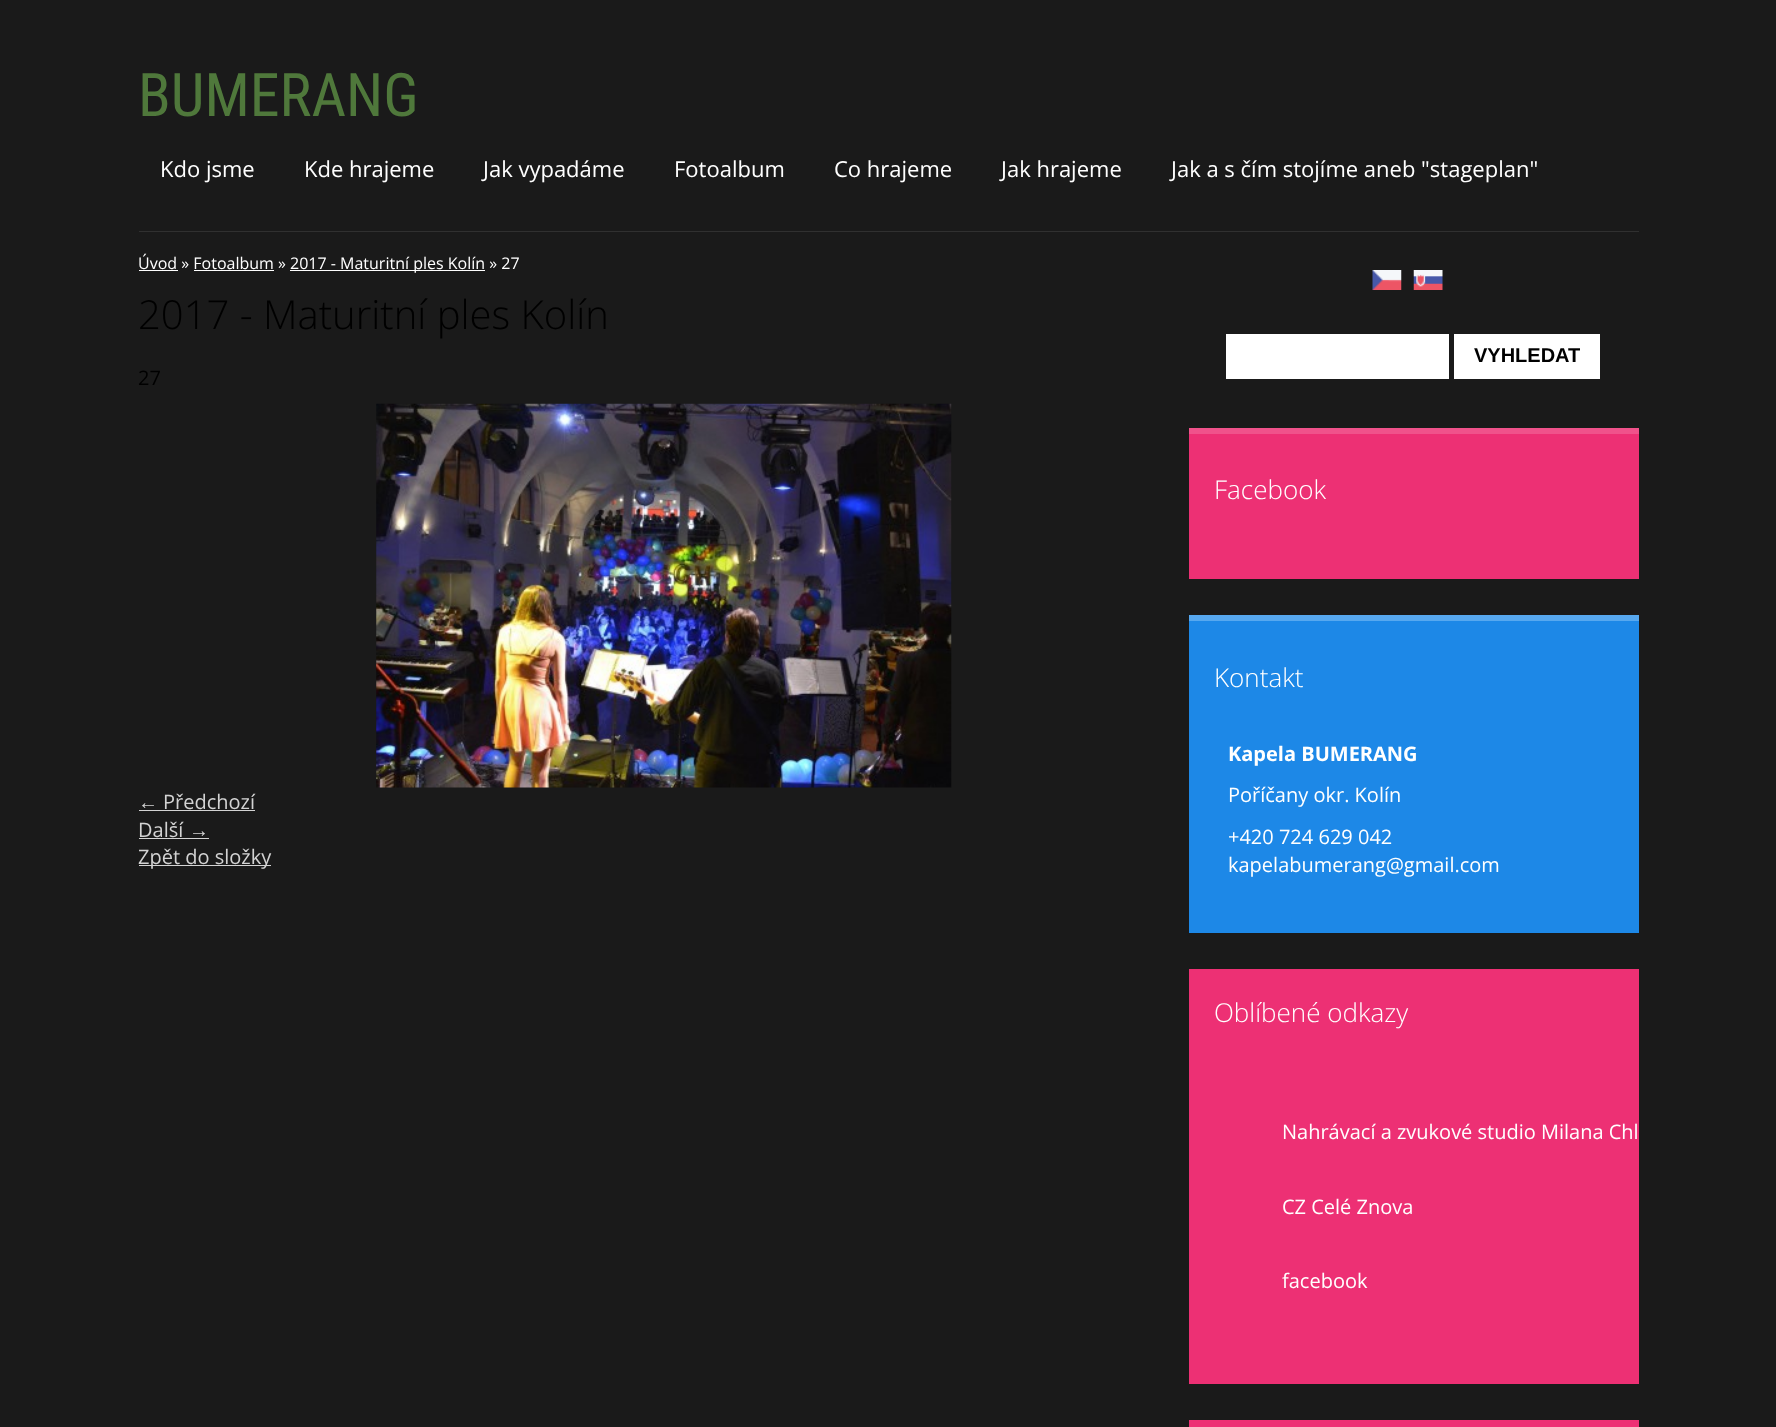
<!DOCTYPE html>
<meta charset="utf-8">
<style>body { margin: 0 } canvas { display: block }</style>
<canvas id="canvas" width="1776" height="1427"></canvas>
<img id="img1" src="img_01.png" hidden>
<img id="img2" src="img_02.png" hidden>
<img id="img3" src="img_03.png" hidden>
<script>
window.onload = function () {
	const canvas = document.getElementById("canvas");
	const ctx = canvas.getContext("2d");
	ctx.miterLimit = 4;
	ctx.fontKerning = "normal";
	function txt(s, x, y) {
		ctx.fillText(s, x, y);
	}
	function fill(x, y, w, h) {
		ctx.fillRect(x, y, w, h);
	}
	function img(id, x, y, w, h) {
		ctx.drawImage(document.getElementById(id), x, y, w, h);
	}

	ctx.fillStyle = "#1A1A1A";
	fill(0, 0, 1776, 1427);
	ctx.fillStyle = "#303030";
	fill(139, 231, 1500, 1);
	ctx.fillStyle = "#FFFFFF";
	fill(139, 270, 39, 1);
	fill(290, 270, 195, 1);
	fill(194, 270, 80, 1);
	img("img1", 376, 403, 576, 385);
	ctx.fillStyle = "#D3D3D3";
	fill(139, 810, 116, 1);
	fill(139, 838, 70, 1);
	fill(139, 865, 132, 1);
	img("img2", 1372, 270, 30, 20);
	img("img3", 1413, 270, 30, 20);
	ctx.fillStyle = "#FFFFFF";
	fill(1226, 334, 223, 45);
	fill(1454, 334, 146, 45);
	ctx.fillStyle = "#ED3074";
	fill(1189, 434, 450, 145);
	ctx.fillStyle = "#F0528B";
	fill(1189, 428, 450, 6);
	ctx.fillStyle = "#1D88E7";
	fill(1189, 621, 450, 312);
	ctx.fillStyle = "#57A8EF";
	fill(1189, 615, 450, 6);
	ctx.fillStyle = "#ED3074";
	fill(1189, 969, 450, 415);
	fill(1189, 1420, 450, 7);
	ctx.font = "60px Roboto Condensed";
	ctx.fillStyle = "#4F783B";
	txt("BUMERANG", 138, 116);
	ctx.font = "22px Open Sans";
	ctx.fillStyle = "#FFFFFF";
	txt("Kdo jsme", 160, 177);
	txt("Kde hrajeme", 304, 177);
	txt("Jak vypadáme", 483, 177);
	txt("Fotoalbum", 674, 177);
	txt("Co hrajeme", 834, 177);
	txt("Jak hrajeme", 1001, 177);
	txt("Jak a s čím stojíme aneb \"stageplan\"", 1171, 177);
	ctx.font = "16px Open Sans";
	txt("Úvod » Fotoalbum »", 138, 269);
	txt("2017 - Maturitní ples Kolín » 27", 290, 269);
	ctx.font = "300 40px Open Sans";
	ctx.fillStyle = "#000000";
	txt("2017 - Maturitní ples Kolín", 138, 329);
	ctx.font = "20px Open Sans";
	txt("27", 138, 385);
	ctx.font = "20px Liberation Sans";
	ctx.fillStyle = "#D3D3D3";
	txt("←", 138, 809);
	ctx.font = "20px Open Sans";
	txt("Předchozí", 163, 809);
	txt("Další", 138, 837);
	ctx.font = "20px Liberation Sans";
	txt("→", 189, 837);
	ctx.font = "20px Open Sans";
	txt("Zpět do složky", 138, 864);
	ctx.font = "bold 20px Liberation Sans";
	ctx.fillStyle = "#000000";
	txt("VYHLEDAT", 1474, 362);
	ctx.font = "300 26px Open Sans";
	ctx.fillStyle = "#FFFFFF";
	txt("Facebook", 1214, 499);
	txt("Kontakt", 1214, 687);
	ctx.font = "bold 20px Open Sans";
	txt("Kapela BUMERANG", 1228, 761);
	ctx.font = "20px Open Sans";
	txt("Poříčany okr. Kolín", 1228, 802);
	txt("+420 724 629 042", 1228, 844);
	txt("kapelabumerang@gmail.com", 1228, 872);
	ctx.font = "300 26px Open Sans";
	txt("Oblíbené odkazy", 1214, 1022);
	ctx.font = "20px Open Sans";
	txt("Nahrávací a zvukové studio Milana Chl", 1282, 1139);
	txt("CZ Celé Znova", 1282, 1214);
	txt("facebook", 1282, 1288);
};
</script>
